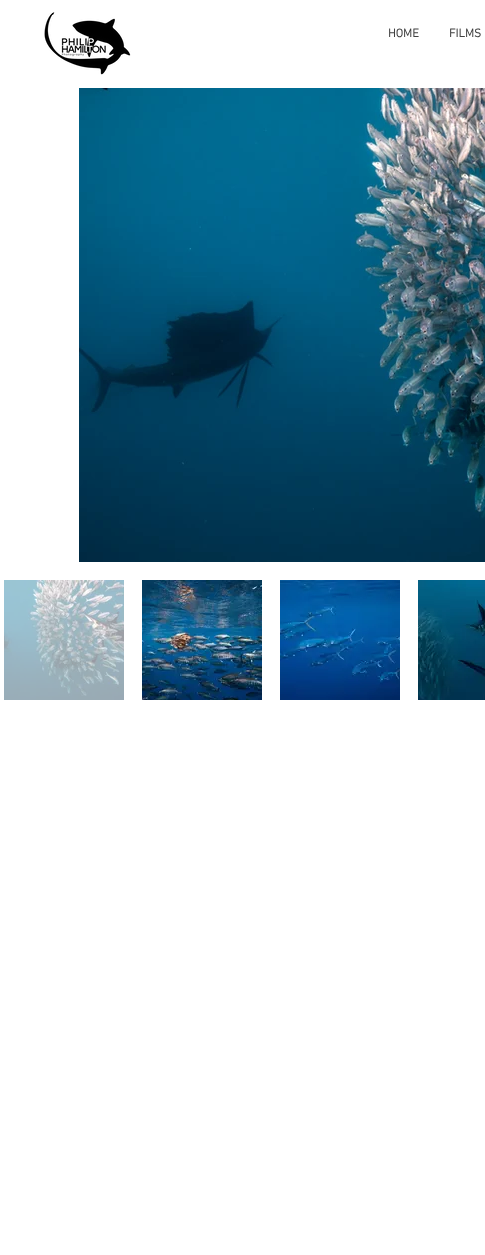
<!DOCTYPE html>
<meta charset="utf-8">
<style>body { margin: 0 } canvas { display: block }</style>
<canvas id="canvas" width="485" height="1255"></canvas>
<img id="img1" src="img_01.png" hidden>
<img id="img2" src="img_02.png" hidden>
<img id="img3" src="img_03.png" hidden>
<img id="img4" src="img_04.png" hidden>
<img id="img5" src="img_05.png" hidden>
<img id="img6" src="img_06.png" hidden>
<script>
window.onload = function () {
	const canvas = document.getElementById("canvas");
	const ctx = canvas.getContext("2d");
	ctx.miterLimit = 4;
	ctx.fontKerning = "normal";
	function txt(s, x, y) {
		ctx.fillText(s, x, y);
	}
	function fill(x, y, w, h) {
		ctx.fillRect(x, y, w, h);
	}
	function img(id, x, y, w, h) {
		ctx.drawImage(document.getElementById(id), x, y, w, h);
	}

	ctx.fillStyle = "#FFFFFF";
	fill(0, 0, 485, 1255);
	img("img1", 44, 12, 87, 63);
	img("img2", 79, 88, 406, 474);
	img("img3", 4, 580, 120, 120);
	img("img4", 142, 580, 120, 120);
	img("img5", 280, 580, 120, 120);
	img("img6", 418, 580, 67, 120);
	ctx.font = "bold 12px 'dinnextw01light'";
	ctx.fillStyle = "#414141";
	txt("HOME", 388, 37);
	txt("FILMS", 449, 37);
};
</script>
